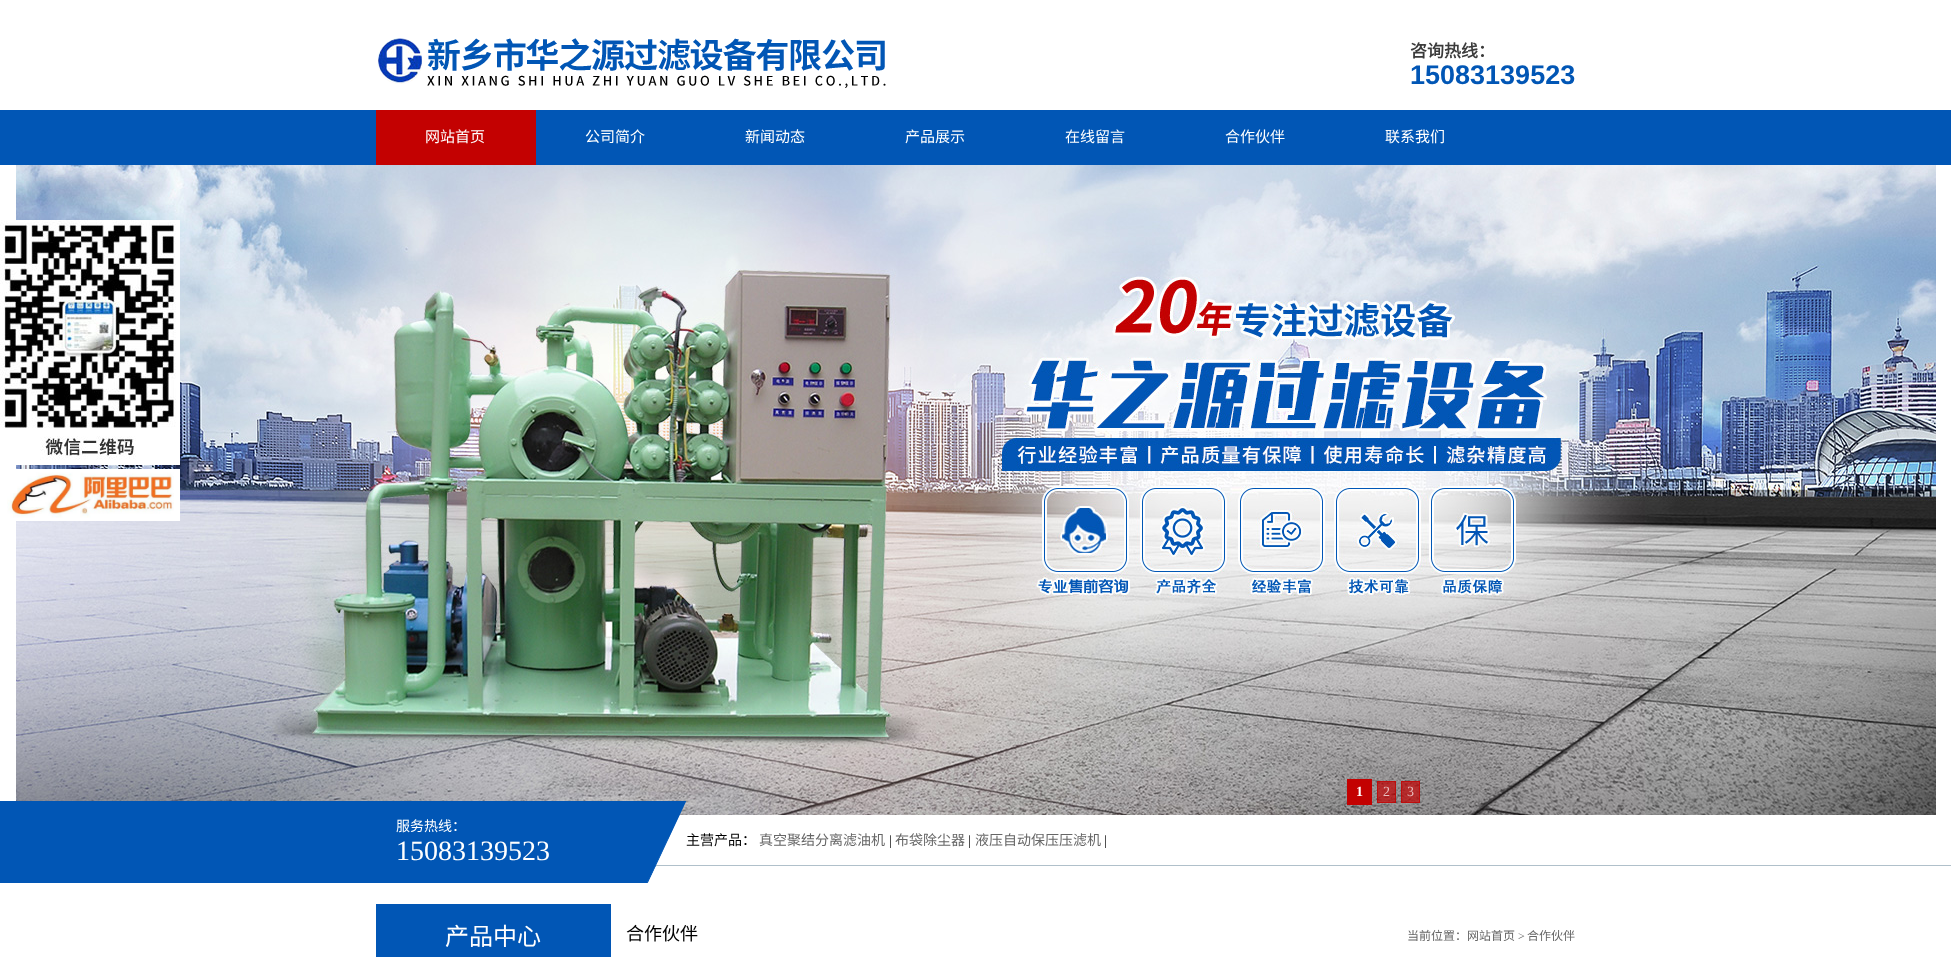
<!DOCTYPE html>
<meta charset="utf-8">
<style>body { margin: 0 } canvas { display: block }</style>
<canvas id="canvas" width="1951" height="957"></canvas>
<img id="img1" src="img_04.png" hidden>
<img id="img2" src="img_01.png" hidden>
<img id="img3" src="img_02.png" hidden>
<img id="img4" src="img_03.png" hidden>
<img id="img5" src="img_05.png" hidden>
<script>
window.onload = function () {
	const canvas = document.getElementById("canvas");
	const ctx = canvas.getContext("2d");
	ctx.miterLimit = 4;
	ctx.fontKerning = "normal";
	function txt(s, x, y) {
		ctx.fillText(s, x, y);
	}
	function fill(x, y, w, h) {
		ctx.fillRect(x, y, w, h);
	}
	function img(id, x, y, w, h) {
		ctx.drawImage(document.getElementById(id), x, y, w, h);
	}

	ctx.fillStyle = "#FFFFFF";
	fill(0, 0, 1951, 957);
	img("img1", 16, 165, 1920, 650);
	img("img2", 0, 220, 180, 245);
	img("img3", 7, 469, 173, 52);
	img("img4", 377, 38, 509, 50);
	ctx.fillStyle = "#0156B5";
	fill(0, 110, 1951, 55);
	ctx.fillStyle = "#C30101";
	fill(376, 110, 160, 55);
	fill(1347, 779, 25, 26);
	ctx.fillStyle = "rgba(195, 1, 1, 0.7)";
	fill(1377, 781, 19, 22);
	ctx.strokeStyle = "rgba(195, 1, 1, 0.7)";
	ctx.strokeRect(1377.5, 781.5, 18, 21);
	fill(1401, 781, 19, 22);
	ctx.strokeRect(1401.5, 781.5, 18, 21);
	ctx.fillStyle = "#B0C0CA";
	fill(655, 865, 1296, 1);
	ctx.fillStyle = "#0156B5";
	fill(0, 801, 476, 82);
	img("img5", 476, 801, 211, 82);
	fill(376, 904, 235, 53);
	ctx.font = "bold 17px Noto Sans CJK SC";
	ctx.fillStyle = "#3B3B3B";
	txt("咨询热线：", 1410, 57);
	ctx.font = "bold 27px Liberation Sans";
	ctx.fillStyle = "#0156B5";
	txt("15083139523", 1410, 84);
	ctx.font = "15px Noto Sans CJK SC";
	ctx.fillStyle = "#FFFFFF";
	txt("网站首页", 425, 142);
	txt("公司简介", 585, 142);
	txt("新闻动态", 745, 142);
	txt("产品展示", 905, 142);
	txt("在线留言", 1065, 142);
	txt("合作伙伴", 1225, 142);
	txt("联系我们", 1385, 142);
	ctx.font = "bold 14px Liberation Serif";
	txt("1", 1356, 796);
	ctx.font = "14px Liberation Serif";
	ctx.fillStyle = "#E8BFBF";
	txt("2", 1383, 796);
	txt("3", 1407, 796);
	ctx.font = "14px Noto Sans CJK SC";
	ctx.fillStyle = "#FFFFFF";
	txt("服务热线：", 396, 831);
	ctx.font = "28px Liberation Serif";
	txt("15083139523", 396, 860);
	ctx.font = "14px Noto Sans CJK SC";
	ctx.fillStyle = "#000000";
	txt("主营产品：", 686, 845);
	ctx.fillStyle = "#666666";
	txt("真空聚结分离滤油机", 759, 845);
	ctx.font = "14px Liberation Serif";
	ctx.fillStyle = "#000000";
	txt("|", 889, 845);
	ctx.font = "14px Noto Sans CJK SC";
	ctx.fillStyle = "#666666";
	txt("布袋除尘器", 895, 845);
	ctx.font = "14px Liberation Serif";
	ctx.fillStyle = "#000000";
	txt("|", 968, 845);
	ctx.font = "14px Noto Sans CJK SC";
	ctx.fillStyle = "#666666";
	txt("液压自动保压压滤机", 975, 845);
	ctx.font = "14px Liberation Serif";
	ctx.fillStyle = "#000000";
	txt("|", 1104, 845);
	ctx.font = "24px Noto Sans CJK SC";
	ctx.fillStyle = "#FFFFFF";
	txt("产品中心", 445, 945);
	ctx.font = "18px Noto Sans CJK SC";
	ctx.fillStyle = "#000000";
	txt("合作伙伴", 626, 940);
	ctx.font = "12px Noto Sans CJK SC";
	ctx.fillStyle = "#666666";
	txt("当前位置：网站首页", 1407, 940);
	ctx.font = "12px Liberation Serif";
	txt(">", 1518, 940);
	ctx.font = "12px Noto Sans CJK SC";
	txt("合作伙伴", 1527, 940);
};
</script>
